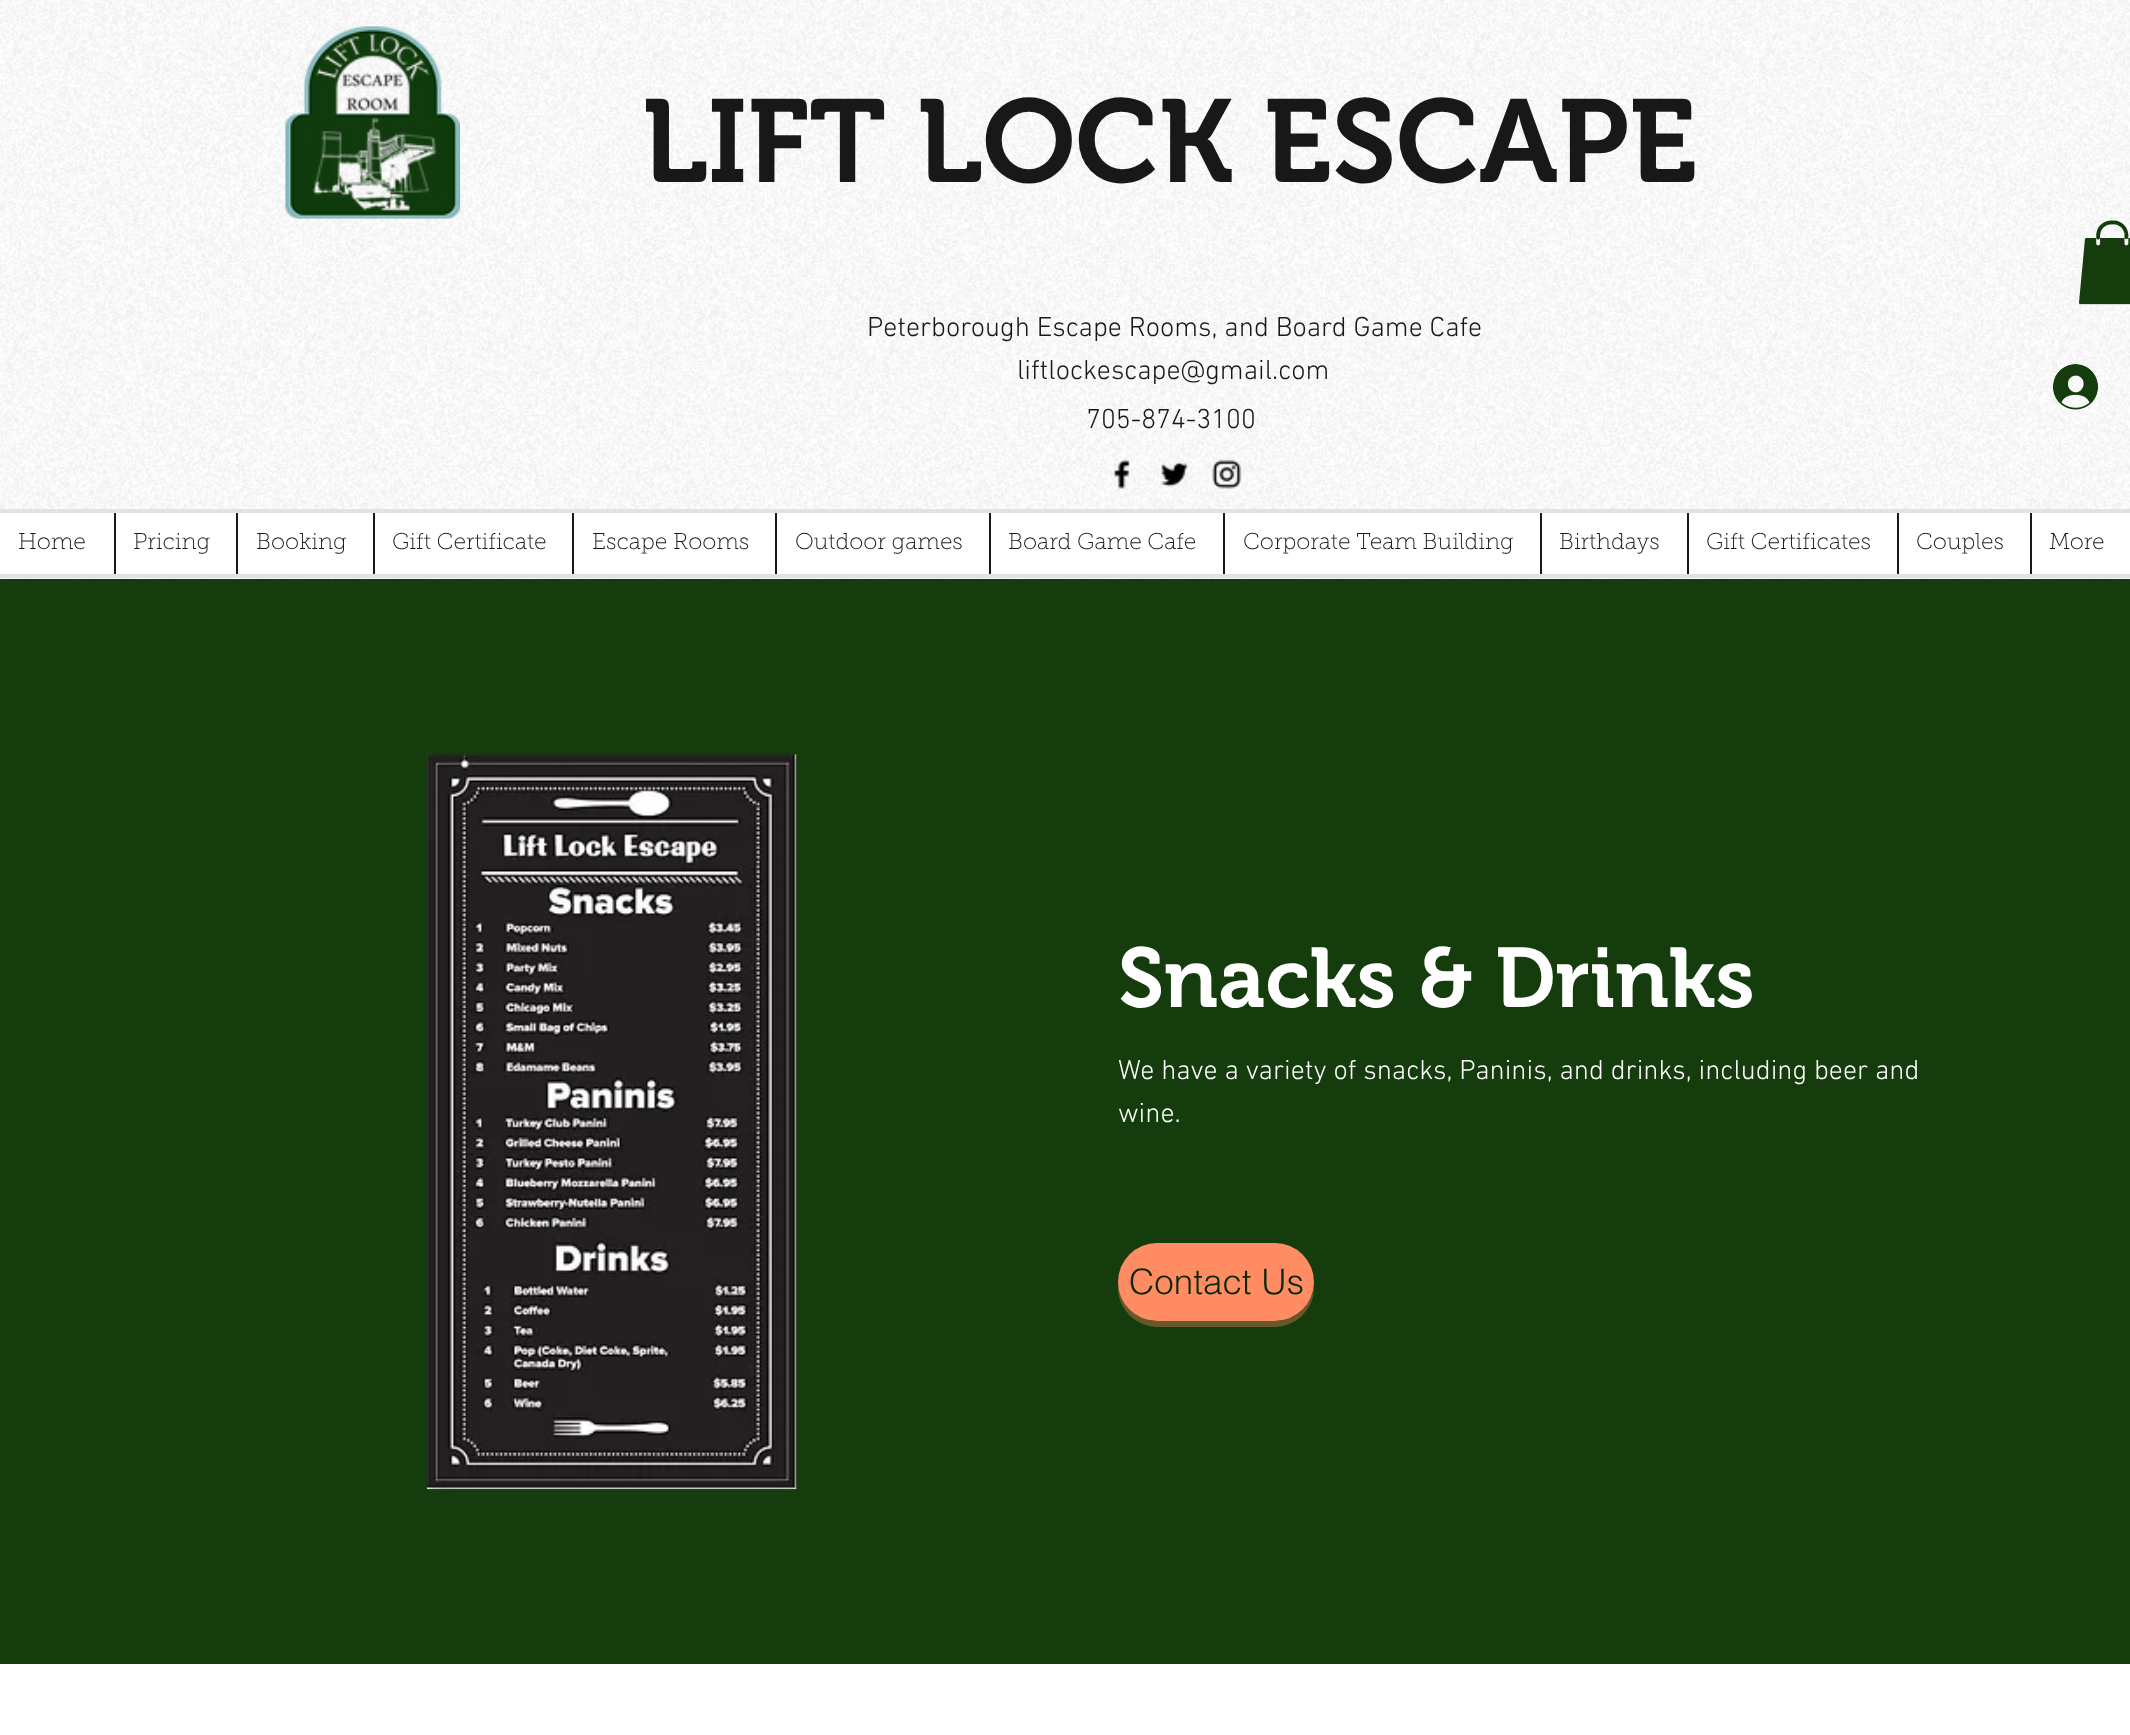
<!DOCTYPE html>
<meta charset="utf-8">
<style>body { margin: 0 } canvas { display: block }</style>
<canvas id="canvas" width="2130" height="1735"></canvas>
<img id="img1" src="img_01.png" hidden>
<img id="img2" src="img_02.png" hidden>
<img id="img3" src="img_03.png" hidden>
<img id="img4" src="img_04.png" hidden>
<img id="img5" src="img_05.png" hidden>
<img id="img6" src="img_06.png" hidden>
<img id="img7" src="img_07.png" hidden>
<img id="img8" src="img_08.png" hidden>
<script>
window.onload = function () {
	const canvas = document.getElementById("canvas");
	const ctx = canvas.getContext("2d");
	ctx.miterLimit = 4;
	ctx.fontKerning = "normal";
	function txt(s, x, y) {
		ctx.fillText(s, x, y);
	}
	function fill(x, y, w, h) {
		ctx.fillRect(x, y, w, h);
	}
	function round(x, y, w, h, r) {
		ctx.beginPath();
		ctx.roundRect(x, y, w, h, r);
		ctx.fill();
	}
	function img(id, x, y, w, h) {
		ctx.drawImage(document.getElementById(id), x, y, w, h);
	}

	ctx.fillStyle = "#FFFFFF";
	fill(0, 0, 2130, 1735);
	img("img1", 0, 0, 2130, 579);
	img("img2", 285, 26, 176, 193);
	img("img3", 2079, 220, 51, 85);
	img("img4", 2053, 364, 45, 46);
	img("img5", 1114, 459, 16, 30);
	img("img6", 1160, 462, 29, 25);
	img("img7", 1212, 459, 30, 30);
	ctx.fillStyle = "#E2E2E2";
	fill(0, 509, 2130, 69);
	ctx.fillStyle = "#FFFFFF";
	fill(0, 513, 2130, 61);
	ctx.fillStyle = "#181818";
	fill(114, 513, 2, 61);
	fill(236, 513, 2, 61);
	fill(373, 513, 2, 61);
	fill(572, 513, 2, 61);
	fill(775, 513, 2, 61);
	fill(989, 513, 2, 61);
	fill(1223, 513, 2, 61);
	fill(1540, 513, 2, 61);
	fill(1687, 513, 2, 61);
	fill(1897, 513, 2, 61);
	fill(2030, 513, 2, 61);
	ctx.fillStyle = "#143C0C";
	fill(0, 579, 2130, 1085);
	img("img8", 427, 754, 370, 736);
	ctx.fillStyle = "#66582A";
	ctx.beginPath();
	ctx.moveTo(1118, 1283);
	ctx.lineTo(1118, 1288);
	ctx.bezierCurveTo(1118, 1309, 1136, 1327, 1158, 1327);
	ctx.lineTo(1274, 1327);
	ctx.bezierCurveTo(1296, 1327, 1314, 1309, 1314, 1288);
	ctx.lineTo(1314, 1286);
	ctx.bezierCurveTo(1312, 1306, 1295, 1321, 1275, 1321);
	ctx.lineTo(1158, 1321);
	ctx.bezierCurveTo(1136, 1321, 1119, 1304, 1118, 1283);
	ctx.closePath();
	ctx.fill();
	ctx.fillStyle = "#FF8C62";
	round(1118, 1243, 196, 78, 39);
	ctx.font = "600 117.25px 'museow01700'";
	ctx.fillStyle = "#181818";
	txt("LIFT LOCK ESCAPE", 642, 182);
	ctx.font = "300 28px 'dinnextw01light'";
	txt("Peterborough Escape Rooms, and Board Game Cafe", 867, 336);
	txt("liftlockescape@gmail.com", 1017, 379);
	txt("705-874-3100", 1086, 428);
	ctx.font = "100 22.75px 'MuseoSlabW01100'";
	txt("Home", 18, 549);
	txt("Pricing", 133, 549);
	txt("Booking", 256, 549);
	txt("Gift Certificate", 392, 549);
	txt("Escape Rooms", 592, 549);
	txt("Outdoor games", 795, 549);
	txt("Board Game Cafe", 1008, 549);
	txt("Corporate Team Building", 1243, 549);
	txt("Birthdays", 1559, 549);
	txt("Gift Certificates", 1706, 549);
	txt("Couples", 1916, 549);
	txt("More", 2049, 549);
	ctx.font = "600 84px 'museow01700'";
	ctx.fillStyle = "#FFFFFF";
	txt("Snacks & Drinks", 1118, 1007);
	ctx.font = "300 28px 'dinnextw01light'";
	txt("We have a variety of snacks, Paninis, and drinks, including beer and", 1118, 1079);
	txt("wine.", 1118, 1122);
	ctx.font = "300 35px helvetica";
	ctx.fillStyle = "#0D2808";
	txt("Contact Us", 1129, 1294);
};
</script>
